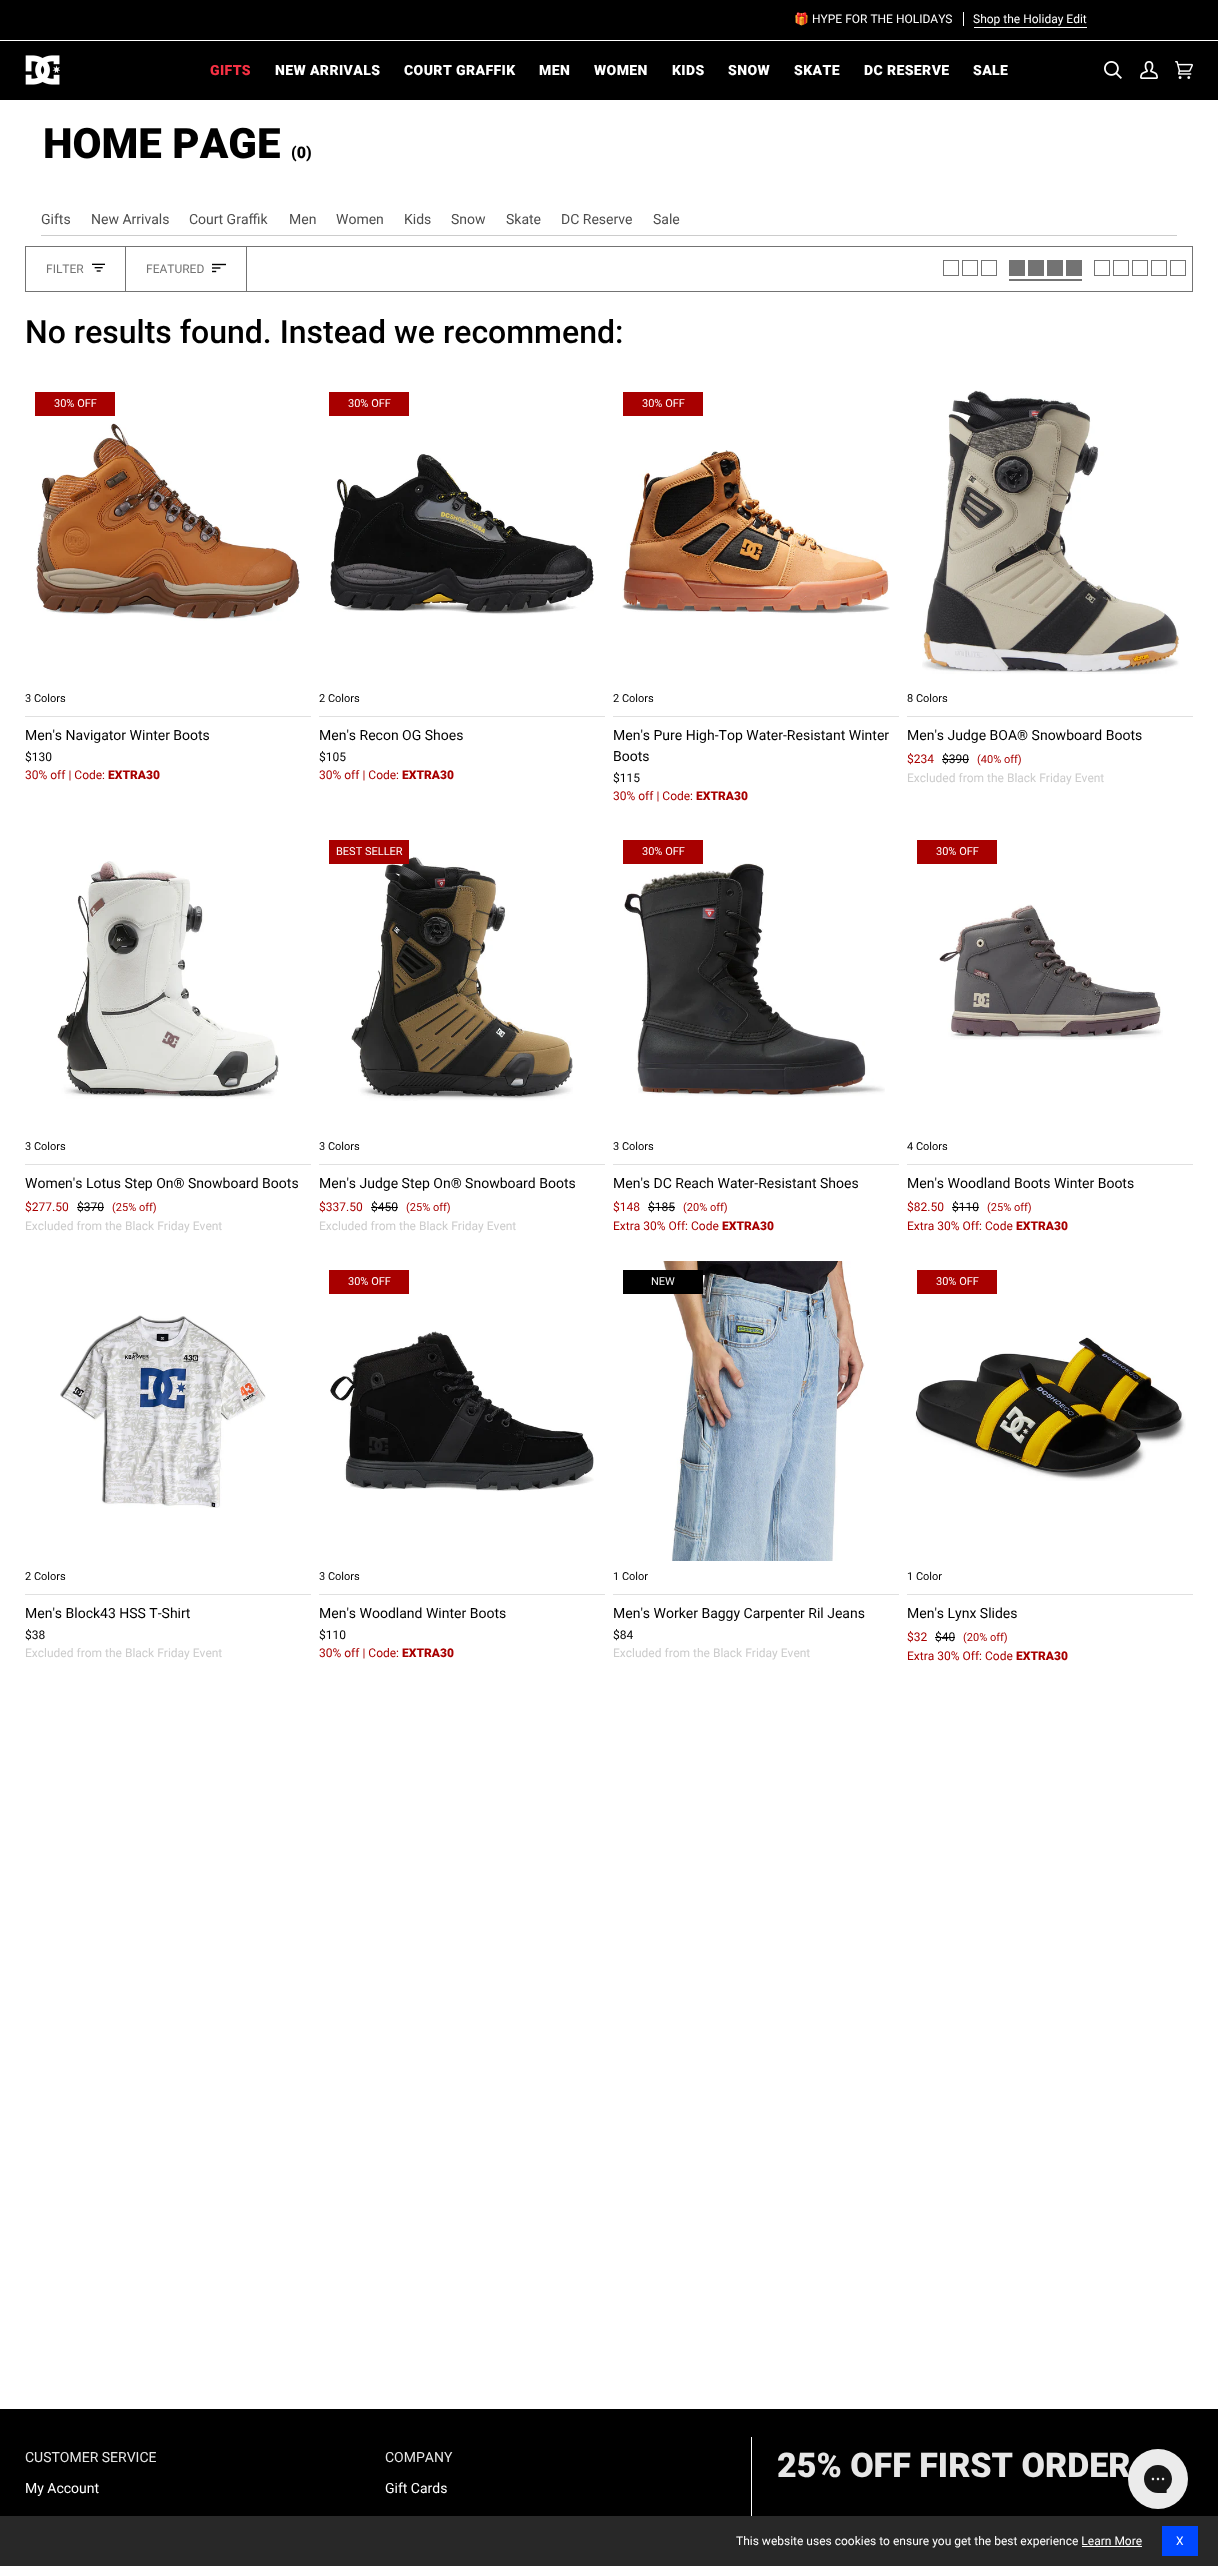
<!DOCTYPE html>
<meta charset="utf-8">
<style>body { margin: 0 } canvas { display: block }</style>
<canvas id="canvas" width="1218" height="2566"></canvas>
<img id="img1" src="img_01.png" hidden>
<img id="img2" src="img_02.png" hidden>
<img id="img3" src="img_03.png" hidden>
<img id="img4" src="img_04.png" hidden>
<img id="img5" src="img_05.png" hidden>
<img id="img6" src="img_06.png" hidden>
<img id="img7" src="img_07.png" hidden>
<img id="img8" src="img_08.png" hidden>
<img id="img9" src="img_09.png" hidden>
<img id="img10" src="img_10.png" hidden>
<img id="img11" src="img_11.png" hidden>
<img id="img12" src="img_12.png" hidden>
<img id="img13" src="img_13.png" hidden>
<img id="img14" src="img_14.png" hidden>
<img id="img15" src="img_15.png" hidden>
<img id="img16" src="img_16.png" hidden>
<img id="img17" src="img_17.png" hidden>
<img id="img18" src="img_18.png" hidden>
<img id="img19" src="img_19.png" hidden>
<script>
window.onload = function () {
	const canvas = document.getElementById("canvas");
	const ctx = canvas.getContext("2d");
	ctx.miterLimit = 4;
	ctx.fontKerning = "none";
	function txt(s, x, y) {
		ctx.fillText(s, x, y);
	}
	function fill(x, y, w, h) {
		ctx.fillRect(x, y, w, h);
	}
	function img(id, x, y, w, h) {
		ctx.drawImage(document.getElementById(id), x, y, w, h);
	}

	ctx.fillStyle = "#FFFFFF";
	fill(0, 0, 1218, 2566);
	ctx.fillStyle = "#000000";
	fill(0, 0, 1218, 40);
	ctx.fillStyle = "#FFFFFF";
	fill(963, 12, 1, 14);
	fill(974, 27, 113, 1);
	ctx.fillStyle = "#000000";
	fill(0, 41, 1218, 59);
	img("img1", 25, 55, 35, 30);
	img("img2", 1104, 61, 18, 18);
	img("img3", 1140, 61, 18, 18);
	img("img4", 1175, 61, 18, 18);
	ctx.fillStyle = "#CCCCCC";
	fill(41, 235, 1136, 1);
	ctx.strokeStyle = "#737373";
	ctx.strokeRect(25.5, 246.5, 1167, 45);
	ctx.fillStyle = "#737373";
	fill(125, 247, 1, 44);
	img("img5", 92, 263, 13, 9);
	fill(246, 247, 1, 44);
	img("img6", 212, 263, 14, 10);
	ctx.strokeRect(943.5, 260.5, 15, 15);
	ctx.strokeRect(962.5, 260.5, 15, 15);
	ctx.strokeRect(981.5, 260.5, 15, 15);
	fill(1009, 260, 16, 16);
	fill(1028, 260, 16, 16);
	fill(1047, 260, 16, 16);
	fill(1066, 260, 16, 16);
	fill(1009, 279, 73, 2);
	ctx.strokeRect(1094.5, 260.5, 15, 15);
	ctx.strokeRect(1113.5, 260.5, 15, 15);
	ctx.strokeRect(1132.5, 260.5, 15, 15);
	ctx.strokeRect(1151.5, 260.5, 15, 15);
	ctx.strokeRect(1170.5, 260.5, 15, 15);
	ctx.fillStyle = "#A80000";
	fill(35, 392, 80, 24);
	img("img7", 35, 423, 265, 198);
	ctx.fillStyle = "#E0E0E0";
	fill(25, 716, 286, 1);
	ctx.fillStyle = "#A80000";
	fill(329, 392, 80, 24);
	img("img8", 330, 454, 264, 161);
	ctx.fillStyle = "#E0E0E0";
	fill(319, 716, 286, 1);
	ctx.fillStyle = "#A80000";
	fill(623, 392, 80, 24);
	img("img9", 622, 450, 268, 164);
	ctx.fillStyle = "#E0E0E0";
	fill(613, 716, 286, 1);
	img("img10", 922, 390, 258, 284);
	fill(907, 716, 286, 1);
	ctx.fillStyle = "#000000";
	fill(942, 759, 27, 1);
	img("img11", 57, 861, 222, 238);
	ctx.fillStyle = "#E0E0E0";
	fill(25, 1164, 286, 1);
	ctx.fillStyle = "#000000";
	fill(77, 1207, 27, 1);
	img("img12", 351, 856, 222, 245);
	ctx.fillStyle = "#A80000";
	fill(329, 840, 80, 24);
	ctx.fillStyle = "#E0E0E0";
	fill(319, 1164, 286, 1);
	ctx.fillStyle = "#000000";
	fill(371, 1207, 27, 1);
	img("img13", 624, 863, 261, 234);
	ctx.fillStyle = "#A80000";
	fill(623, 840, 80, 24);
	ctx.fillStyle = "#E0E0E0";
	fill(613, 1164, 286, 1);
	ctx.fillStyle = "#000000";
	fill(648, 1207, 27, 1);
	ctx.fillStyle = "#A80000";
	fill(917, 840, 80, 24);
	img("img14", 939, 904, 224, 136);
	ctx.fillStyle = "#E0E0E0";
	fill(907, 1164, 286, 1);
	ctx.fillStyle = "#000000";
	fill(952, 1207, 27, 1);
	img("img15", 60, 1315, 206, 193);
	ctx.fillStyle = "#E0E0E0";
	fill(25, 1594, 286, 1);
	ctx.fillStyle = "#A80000";
	fill(329, 1270, 80, 24);
	img("img16", 330, 1331, 264, 161);
	ctx.fillStyle = "#E0E0E0";
	fill(319, 1594, 286, 1);
	img("img17", 663, 1261, 202, 300);
	ctx.fillStyle = "#000000";
	fill(623, 1270, 80, 24);
	ctx.fillStyle = "#E0E0E0";
	fill(613, 1594, 286, 1);
	ctx.fillStyle = "#A80000";
	fill(917, 1270, 80, 24);
	img("img18", 915, 1337, 271, 144);
	ctx.fillStyle = "#E0E0E0";
	fill(907, 1594, 286, 1);
	ctx.fillStyle = "#000000";
	fill(935, 1637, 20, 1);
	fill(0, 2409, 1218, 107);
	ctx.fillStyle = "#FFFFFF";
	fill(751, 2437, 1, 79);
	ctx.fillStyle = "#282828";
	fill(0, 2516, 1218, 50);
	ctx.fillStyle = "#FFFFFF";
	fill(1082, 2546, 60, 1);
	ctx.fillStyle = "#0048FF";
	fill(1162, 2526, 36, 30);
	ctx.font = "12px Noto Color Emoji";
	ctx.fillStyle = "#FFFFFF";
	txt("🎁", 794, 23);
	ctx.font = "12px Roboto";
	txt("HYPE FOR THE HOLIDAYS", 812, 23);
	txt("Shop the Holiday Edit", 973, 23);
	ctx.letterSpacing = "0.4px";
	ctx.font = "900 14px Roboto";
	ctx.fillStyle = "#F73144";
	txt("GIFTS", 210, 75);
	ctx.fillStyle = "#FFFFFF";
	txt("NEW ARRIVALS", 275, 75);
	txt("COURT GRAFFIK", 404, 75);
	txt("MEN", 539, 75);
	txt("WOMEN", 594, 75);
	txt("KIDS", 672, 75);
	txt("SNOW", 728, 75);
	txt("SKATE", 794, 75);
	txt("DC RESERVE", 864, 75);
	txt("SALE", 973, 75);
	ctx.letterSpacing = "0px";
	ctx.font = "900 42px Roboto";
	ctx.fillStyle = "#000000";
	txt("HOME PAGE", 43, 158);
	ctx.font = "900 16px Roboto";
	txt("(0)", 291, 158);
	ctx.font = "14px Roboto";
	ctx.fillStyle = "#4D4D4D";
	txt("Gifts", 41, 224);
	txt("New Arrivals", 91, 224);
	txt("Court Graffik", 189, 224);
	txt("Men", 289, 224);
	txt("Women", 336, 224);
	txt("Kids", 404, 224);
	txt("Snow", 451, 224);
	txt("Skate", 506, 224);
	txt("DC Reserve", 561, 224);
	txt("Sale", 653, 224);
	ctx.font = "12px Roboto";
	ctx.fillStyle = "#737373";
	txt("FILTER", 46, 273);
	txt("FEATURED", 146, 273);
	ctx.font = "500 32px Roboto";
	ctx.fillStyle = "#000000";
	txt("No results found. Instead we recommend:", 25, 343);
	ctx.font = "11px Roboto";
	ctx.fillStyle = "#FFFFFF";
	txt("30% OFF", 54, 407);
	ctx.fillStyle = "#000000";
	txt("3 Colors", 25, 702);
	ctx.font = "14px Roboto";
	txt("Men's Navigator Winter Boots", 25, 740);
	ctx.font = "12px Roboto";
	txt("$130", 25, 761);
	ctx.fillStyle = "#A80000";
	txt("30% off | Code:", 25, 779);
	ctx.font = "900 12px Roboto";
	txt("EXTRA30", 108, 779);
	ctx.font = "11px Roboto";
	ctx.fillStyle = "#FFFFFF";
	txt("30% OFF", 348, 407);
	ctx.fillStyle = "#000000";
	txt("2 Colors", 319, 702);
	ctx.font = "14px Roboto";
	txt("Men's Recon OG Shoes", 319, 740);
	ctx.font = "12px Roboto";
	txt("$105", 319, 761);
	ctx.fillStyle = "#A80000";
	txt("30% off | Code:", 319, 779);
	ctx.font = "900 12px Roboto";
	txt("EXTRA30", 402, 779);
	ctx.font = "11px Roboto";
	ctx.fillStyle = "#FFFFFF";
	txt("30% OFF", 642, 407);
	ctx.fillStyle = "#000000";
	txt("2 Colors", 613, 702);
	ctx.font = "14px Roboto";
	txt("Men's Pure High-Top Water-Resistant Winter", 613, 740);
	txt("Boots", 613, 761);
	ctx.font = "12px Roboto";
	txt("$115", 613, 782);
	ctx.fillStyle = "#A80000";
	txt("30% off | Code:", 613, 800);
	ctx.font = "900 12px Roboto";
	txt("EXTRA30", 696, 800);
	ctx.font = "11px Roboto";
	ctx.fillStyle = "#000000";
	txt("8 Colors", 907, 702);
	ctx.font = "14px Roboto";
	txt("Men's Judge BOA® Snowboard Boots", 907, 740);
	ctx.font = "12px Roboto";
	ctx.fillStyle = "#A80000";
	txt("$234", 907, 763);
	ctx.fillStyle = "#000000";
	txt("$390", 942, 763);
	ctx.font = "11px Roboto";
	ctx.fillStyle = "#A80000";
	txt("(40% off)", 977, 763);
	ctx.font = "12px Roboto";
	ctx.fillStyle = "#CCCCCC";
	txt("Excluded from the Black Friday Event", 907, 782);
	ctx.font = "11px Roboto";
	ctx.fillStyle = "#000000";
	txt("3 Colors", 25, 1150);
	ctx.font = "14px Roboto";
	txt("Women's Lotus Step On® Snowboard Boots", 25, 1188);
	ctx.font = "12px Roboto";
	ctx.fillStyle = "#A80000";
	txt("$277.50", 25, 1211);
	ctx.fillStyle = "#000000";
	txt("$370", 77, 1211);
	ctx.font = "11px Roboto";
	ctx.fillStyle = "#A80000";
	txt("(25% off)", 112, 1211);
	ctx.font = "12px Roboto";
	ctx.fillStyle = "#CCCCCC";
	txt("Excluded from the Black Friday Event", 25, 1230);
	ctx.font = "11px Roboto";
	ctx.fillStyle = "#FFFFFF";
	txt("BEST SELLER", 336, 855);
	ctx.fillStyle = "#000000";
	txt("3 Colors", 319, 1150);
	ctx.font = "14px Roboto";
	txt("Men's Judge Step On® Snowboard Boots", 319, 1188);
	ctx.font = "12px Roboto";
	ctx.fillStyle = "#A80000";
	txt("$337.50", 319, 1211);
	ctx.fillStyle = "#000000";
	txt("$450", 371, 1211);
	ctx.font = "11px Roboto";
	ctx.fillStyle = "#A80000";
	txt("(25% off)", 406, 1211);
	ctx.font = "12px Roboto";
	ctx.fillStyle = "#CCCCCC";
	txt("Excluded from the Black Friday Event", 319, 1230);
	ctx.font = "11px Roboto";
	ctx.fillStyle = "#FFFFFF";
	txt("30% OFF", 642, 855);
	ctx.fillStyle = "#000000";
	txt("3 Colors", 613, 1150);
	ctx.font = "14px Roboto";
	txt("Men's DC Reach Water-Resistant Shoes", 613, 1188);
	ctx.font = "12px Roboto";
	ctx.fillStyle = "#A80000";
	txt("$148", 613, 1211);
	ctx.fillStyle = "#000000";
	txt("$185", 648, 1211);
	ctx.font = "11px Roboto";
	ctx.fillStyle = "#A80000";
	txt("(20% off)", 683, 1211);
	ctx.font = "12px Roboto";
	txt("Extra 30% Off: Code", 613, 1230);
	ctx.font = "900 12px Roboto";
	txt("EXTRA30", 722, 1230);
	ctx.font = "11px Roboto";
	ctx.fillStyle = "#FFFFFF";
	txt("30% OFF", 936, 855);
	ctx.fillStyle = "#000000";
	txt("4 Colors", 907, 1150);
	ctx.font = "14px Roboto";
	txt("Men's Woodland Boots Winter Boots", 907, 1188);
	ctx.font = "12px Roboto";
	ctx.fillStyle = "#A80000";
	txt("$82.50", 907, 1211);
	ctx.fillStyle = "#000000";
	txt("$110", 952, 1211);
	ctx.font = "11px Roboto";
	ctx.fillStyle = "#A80000";
	txt("(25% off)", 987, 1211);
	ctx.font = "12px Roboto";
	txt("Extra 30% Off: Code", 907, 1230);
	ctx.font = "900 12px Roboto";
	txt("EXTRA30", 1016, 1230);
	ctx.font = "11px Roboto";
	ctx.fillStyle = "#000000";
	txt("2 Colors", 25, 1580);
	ctx.font = "14px Roboto";
	txt("Men's Block43 HSS T-Shirt", 25, 1618);
	ctx.font = "12px Roboto";
	txt("$38", 25, 1639);
	ctx.fillStyle = "#CCCCCC";
	txt("Excluded from the Black Friday Event", 25, 1657);
	ctx.font = "11px Roboto";
	ctx.fillStyle = "#FFFFFF";
	txt("30% OFF", 348, 1285);
	ctx.fillStyle = "#000000";
	txt("3 Colors", 319, 1580);
	ctx.font = "14px Roboto";
	txt("Men's Woodland Winter Boots", 319, 1618);
	ctx.font = "12px Roboto";
	txt("$110", 319, 1639);
	ctx.fillStyle = "#A80000";
	txt("30% off | Code:", 319, 1657);
	ctx.font = "900 12px Roboto";
	txt("EXTRA30", 402, 1657);
	ctx.font = "11px Roboto";
	ctx.fillStyle = "#F7F7F7";
	txt("NEW", 651, 1285);
	ctx.fillStyle = "#000000";
	txt("1 Color", 613, 1580);
	ctx.font = "14px Roboto";
	txt("Men's Worker Baggy Carpenter Ril Jeans", 613, 1618);
	ctx.font = "12px Roboto";
	txt("$84", 613, 1639);
	ctx.fillStyle = "#CCCCCC";
	txt("Excluded from the Black Friday Event", 613, 1657);
	ctx.font = "11px Roboto";
	ctx.fillStyle = "#FFFFFF";
	txt("30% OFF", 936, 1285);
	ctx.fillStyle = "#000000";
	txt("1 Color", 907, 1580);
	ctx.font = "14px Roboto";
	txt("Men's Lynx Slides", 907, 1618);
	ctx.font = "12px Roboto";
	ctx.fillStyle = "#A80000";
	txt("$32", 907, 1641);
	ctx.fillStyle = "#000000";
	txt("$40", 935, 1641);
	ctx.font = "11px Roboto";
	ctx.fillStyle = "#A80000";
	txt("(20% off)", 963, 1641);
	ctx.font = "12px Roboto";
	txt("Extra 30% Off: Code", 907, 1660);
	ctx.font = "900 12px Roboto";
	txt("EXTRA30", 1016, 1660);
	ctx.font = "14px Roboto";
	ctx.fillStyle = "#E6E6E6";
	txt("CUSTOMER SERVICE", 25, 2462);
	ctx.fillStyle = "#FFFFFF";
	txt("My Account", 25, 2493);
	ctx.fillStyle = "#E6E6E6";
	txt("COMPANY", 385, 2462);
	ctx.fillStyle = "#FFFFFF";
	txt("Gift Cards", 385, 2493);
	ctx.font = "900 34px Roboto";
	ctx.fillStyle = "#E6E6E6";
	txt("25% OFF FIRST ORDER", 777, 2477);
	img("img19", 1126, 2449, 62, 60);
	ctx.font = "12px Roboto";
	ctx.fillStyle = "#FFFFFF";
	txt("This website uses cookies to ensure you get the best experience Learn More", 736, 2545);
	txt("X", 1176, 2545);
};
</script>
